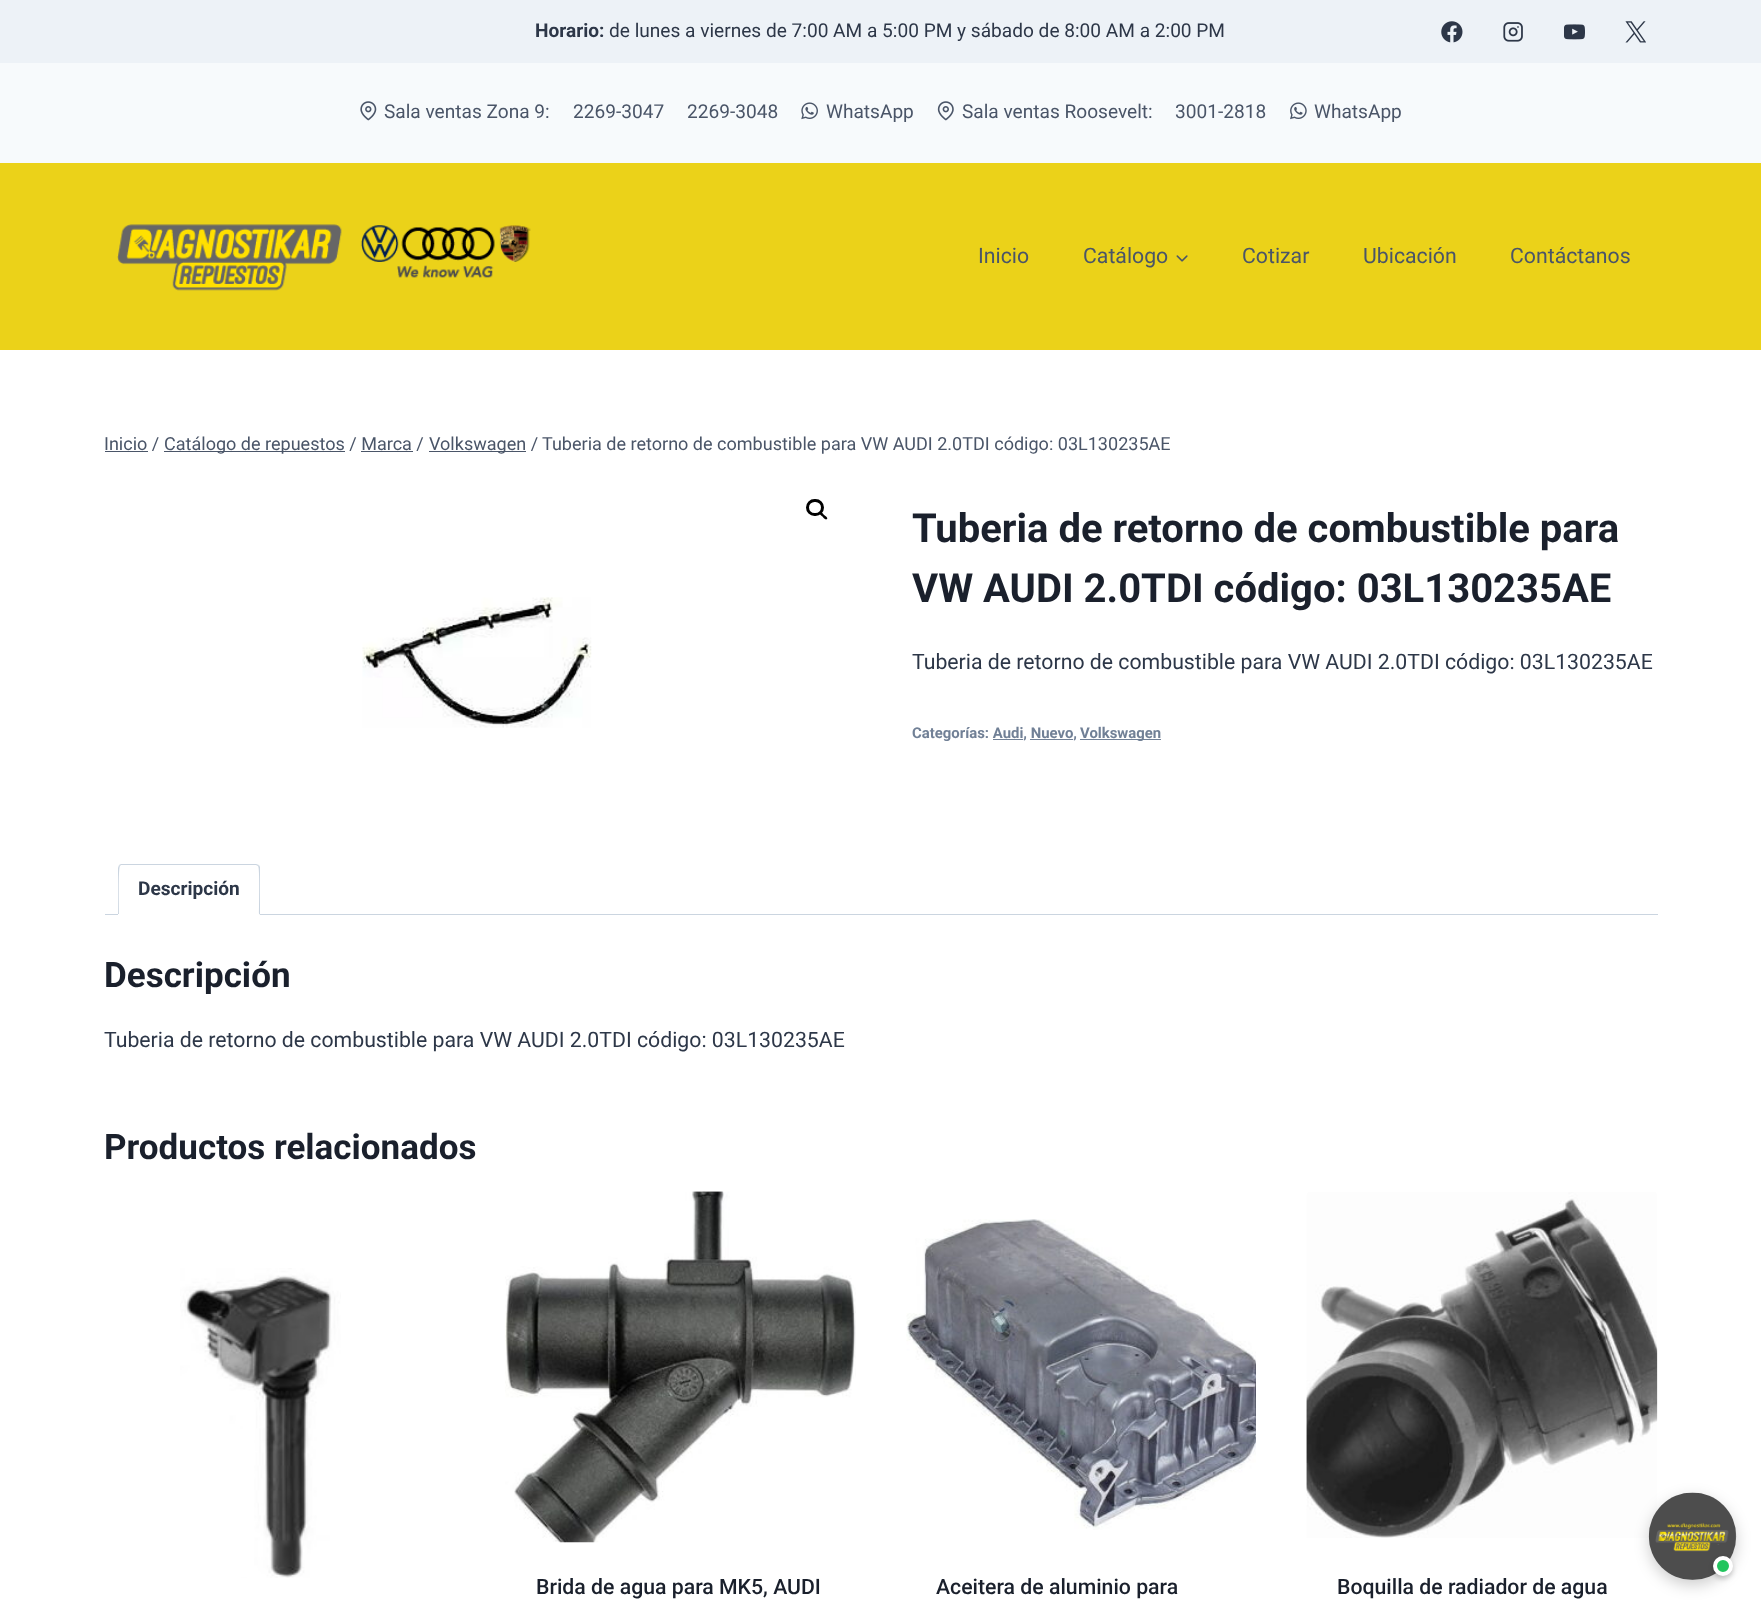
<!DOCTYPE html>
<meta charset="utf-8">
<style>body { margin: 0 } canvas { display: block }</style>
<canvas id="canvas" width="1761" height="1604"></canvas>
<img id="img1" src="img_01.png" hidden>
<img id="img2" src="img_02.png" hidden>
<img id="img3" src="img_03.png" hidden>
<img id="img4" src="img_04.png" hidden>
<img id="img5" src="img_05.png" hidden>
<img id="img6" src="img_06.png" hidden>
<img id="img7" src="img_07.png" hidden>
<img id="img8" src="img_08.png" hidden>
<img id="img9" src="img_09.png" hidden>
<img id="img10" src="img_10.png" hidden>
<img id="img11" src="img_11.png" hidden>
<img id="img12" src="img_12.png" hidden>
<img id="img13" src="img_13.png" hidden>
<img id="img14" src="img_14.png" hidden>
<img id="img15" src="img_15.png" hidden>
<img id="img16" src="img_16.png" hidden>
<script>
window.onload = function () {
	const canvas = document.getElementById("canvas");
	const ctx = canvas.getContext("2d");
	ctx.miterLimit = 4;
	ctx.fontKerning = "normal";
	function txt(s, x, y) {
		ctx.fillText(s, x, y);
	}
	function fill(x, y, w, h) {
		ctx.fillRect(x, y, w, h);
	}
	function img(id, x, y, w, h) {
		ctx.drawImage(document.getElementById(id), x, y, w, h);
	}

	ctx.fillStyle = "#FFFFFF";
	fill(0, 0, 1761, 1604);
	ctx.fillStyle = "#EDF2F7";
	fill(0, 0, 1761, 63);
	img("img1", 1441, 21, 22, 22);
	img("img2", 1503, 22, 20, 20);
	img("img3", 1564, 24, 21, 16);
	img("img4", 1625, 21, 21, 22);
	ctx.fillStyle = "#F7FAFC";
	fill(0, 63, 1761, 100);
	img("img5", 360, 101, 17, 20);
	img("img6", 801, 102, 17, 18);
	img("img7", 937, 101, 17, 20);
	img("img8", 1290, 102, 17, 18);
	ctx.fillStyle = "#EBD219";
	fill(0, 163, 1761, 187);
	img("img9", 117, 224, 414, 67);
	img("img10", 1176, 255, 12, 7);
	ctx.fillStyle = "#4A5568";
	fill(105, 451, 43, 1);
	fill(164, 451, 181, 1);
	fill(429, 451, 97, 1);
	fill(361, 451, 52, 1);
	ctx.beginPath();
	ctx.roundRect(807.5, 500.5, 15, 14, 7);
	ctx.strokeStyle = "#000000";
	ctx.lineWidth = 3;
	ctx.stroke();
	ctx.fillStyle = "#000000";
	ctx.beginPath();
	ctx.moveTo(820, 512);
	ctx.bezierCurveTo(821, 510.5, 823.5, 514, 824, 515);
	ctx.bezierCurveTo(825, 515.5, 828.5, 518, 827, 519);
	ctx.bezierCurveTo(825.5, 520.5, 823, 517.5, 822.5, 516.5);
	ctx.bezierCurveTo(821.5, 516, 818.5, 513.5, 820, 512);
	ctx.closePath();
	ctx.fill();
	img("img11", 362, 597, 230, 131);
	ctx.fillStyle = "#718096";
	fill(1080, 739, 81, 1);
	fill(993, 739, 30, 1);
	fill(1030, 739, 43, 1);
	ctx.fillStyle = "#CBD5E0";
	fill(105, 914, 1553, 1);
	ctx.fillStyle = "#FFFFFF";
	ctx.beginPath();
	ctx.roundRect(118, 864, 142, 51, [4, 4, 0, 0]);
	ctx.fill();
	ctx.fillStyle = "#CBD5E0";
	ctx.beginPath();
	ctx.moveTo(121, 864);
	ctx.lineTo(119, 865);
	ctx.lineTo(120, 866);
	ctx.lineTo(121, 865);
	ctx.lineTo(256, 865);
	ctx.lineTo(258, 866);
	ctx.lineTo(259, 865);
	ctx.lineTo(256, 864);
	ctx.closePath();
	ctx.fill();
	ctx.beginPath();
	ctx.moveTo(259, 865);
	ctx.lineTo(260, 867);
	ctx.lineTo(260, 915);
	ctx.lineTo(259, 914);
	ctx.bezierCurveTo(259, 908, 260, 867, 258, 866);
	ctx.closePath();
	ctx.fill();
	ctx.fillStyle = "#FFFFFF";
	ctx.beginPath();
	ctx.moveTo(260, 915);
	ctx.lineTo(259, 914);
	ctx.lineTo(119, 914);
	ctx.lineTo(118, 915);
	ctx.closePath();
	ctx.fill();
	ctx.fillStyle = "#CBD5E0";
	ctx.beginPath();
	ctx.moveTo(119, 865);
	ctx.lineTo(118, 868);
	ctx.lineTo(118, 914);
	ctx.lineTo(119, 914);
	ctx.bezierCurveTo(119, 908, 118, 868, 120, 866);
	ctx.closePath();
	ctx.fill();
	img("img12", 180, 1268, 161, 310);
	img("img13", 505, 1191, 351, 352);
	img("img14", 906, 1219, 350, 311);
	img("img15", 1306, 1192, 352, 346);
	ctx.fillStyle = "rgba(0, 0, 0, 0.2)";
	ctx.filter = "blur(7.5px)";
	ctx.beginPath();
	ctx.roundRect(1649, 1498, 87, 87, 43.5);
	ctx.fill();
	ctx.filter = "none";
	img("img16", 1648, 1492, 89, 88);
	ctx.filter = "blur(2.5px)";
	ctx.beginPath();
	ctx.roundRect(1713, 1559, 20, 20, 10);
	ctx.fill();
	ctx.filter = "none";
	ctx.fillStyle = "#22C55E";
	ctx.beginPath();
	ctx.arc(1723, 1566, 8, 0, Math.PI * 2);
	ctx.fill();
	ctx.strokeStyle = "#FFFFFF";
	ctx.lineWidth = 4;
	ctx.stroke();
	ctx.font = "bold 19.1px Roboto";
	ctx.fillStyle = "#2D3748";
	txt("Horario:", 535, 37);
	ctx.font = "19.1px Roboto";
	txt("de lunes a viernes de 7:00 AM a 5:00 PM y sábado de 8:00 AM a 2:00 PM", 609, 37);
	ctx.fillStyle = "#4A5568";
	txt("Sala ventas Zona 9:", 384, 118);
	txt("2269-3047", 573, 118);
	txt("2269-3048", 687, 118);
	txt("WhatsApp", 826, 118);
	txt("Sala ventas Roosevelt:", 962, 118);
	txt("3001-2818", 1175, 118);
	txt("WhatsApp", 1314, 118);
	ctx.font = "21.25px Roboto";
	txt("Inicio", 978, 263);
	txt("Catálogo", 1083, 263);
	txt("Cotizar", 1242, 263);
	txt("Ubicación", 1363, 263);
	txt("Contáctanos", 1510, 263);
	ctx.font = "18.05px Roboto";
	txt("Inicio /", 104, 450);
	txt("Catálogo de repuestos / Marca /", 164, 450);
	txt("Volkswagen /", 429, 450);
	txt("Tuberia de retorno de combustible para VW AUDI 2.0TDI código: 03L130235AE", 542, 450);
	ctx.font = "bold 40px Roboto";
	ctx.fillStyle = "#1A202C";
	txt("Tuberia de retorno de combustible para", 912, 542);
	txt("VW AUDI 2.0TDI código: 03L130235AE", 912, 602);
	ctx.font = "21.25px Roboto";
	ctx.fillStyle = "#2D3748";
	txt("Tuberia de retorno de combustible para VW AUDI 2.0TDI código: 03L130235AE", 912, 669);
	ctx.font = "bold 14.9px Roboto";
	ctx.fillStyle = "#718096";
	txt("Categorías: Audi, Nuevo,", 912, 738);
	txt("Volkswagen", 1080, 738);
	ctx.font = "bold 19.1px Roboto";
	ctx.fillStyle = "#2D3748";
	txt("Descripción", 138, 895);
	ctx.font = "bold 35px Roboto";
	ctx.fillStyle = "#1A202C";
	txt("Descripción", 104, 987);
	ctx.font = "21.25px Roboto";
	ctx.fillStyle = "#2D3748";
	txt("Tuberia de retorno de combustible para VW AUDI 2.0TDI código: 03L130235AE", 104, 1047);
	ctx.font = "bold 35px Roboto";
	ctx.fillStyle = "#1A202C";
	txt("Productos relacionados", 104, 1159);
	ctx.font = "500 21.25px Roboto";
	txt("Brida de agua para MK5, AUDI", 536, 1594);
	txt("Aceitera de aluminio para", 936, 1594);
	txt("Boquilla de radiador de agua", 1337, 1594);
};
</script>
